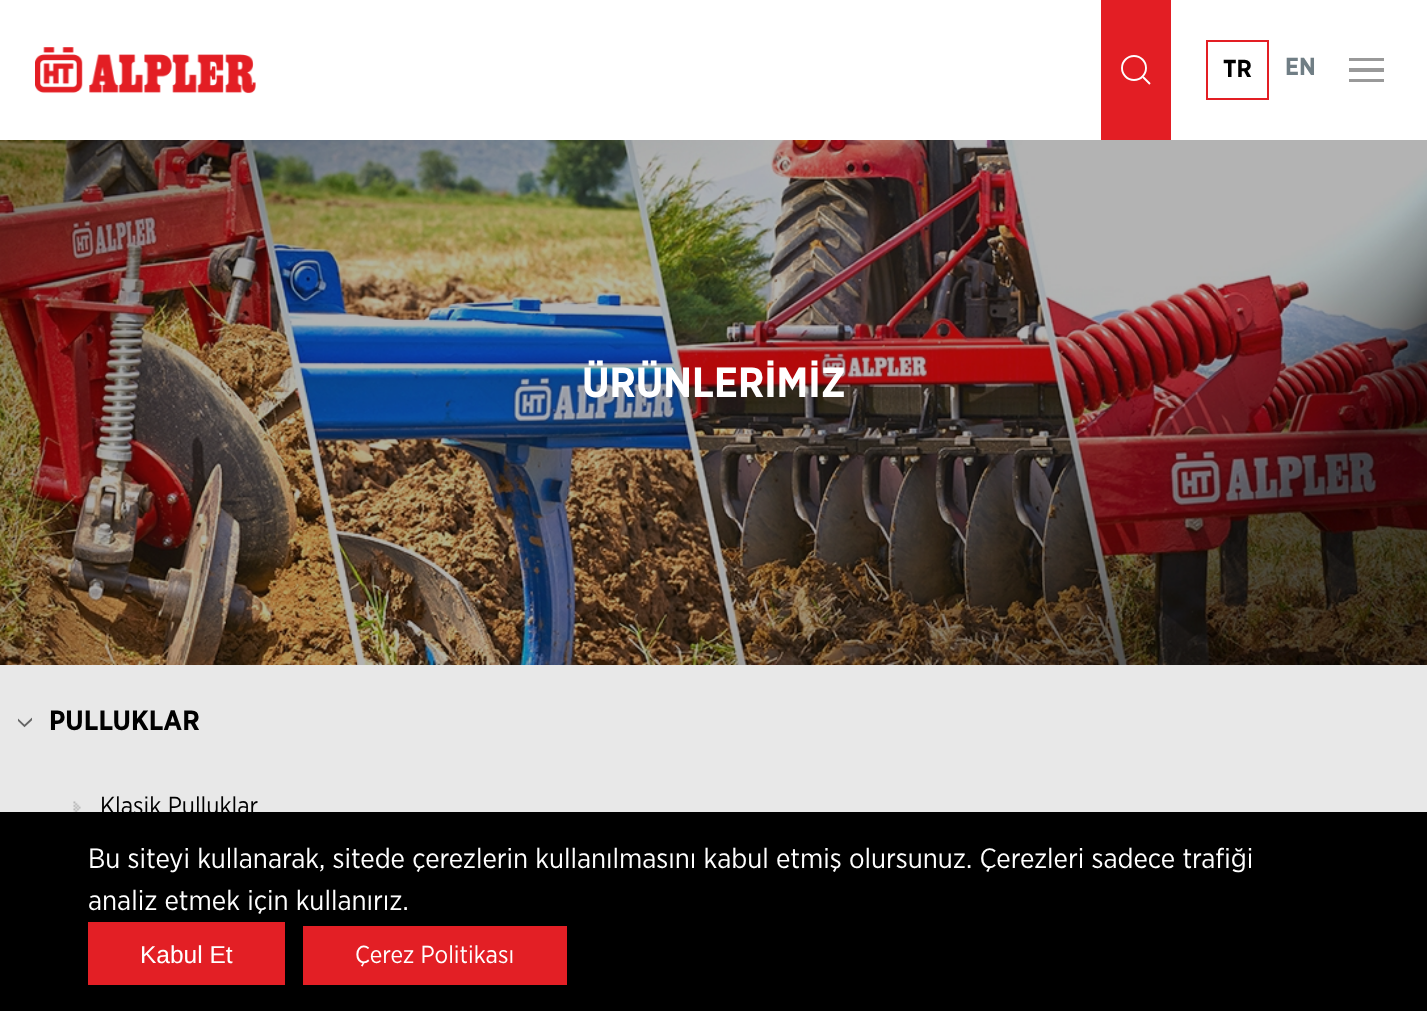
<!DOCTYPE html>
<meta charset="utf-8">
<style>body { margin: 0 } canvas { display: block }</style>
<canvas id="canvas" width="1427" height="1011"></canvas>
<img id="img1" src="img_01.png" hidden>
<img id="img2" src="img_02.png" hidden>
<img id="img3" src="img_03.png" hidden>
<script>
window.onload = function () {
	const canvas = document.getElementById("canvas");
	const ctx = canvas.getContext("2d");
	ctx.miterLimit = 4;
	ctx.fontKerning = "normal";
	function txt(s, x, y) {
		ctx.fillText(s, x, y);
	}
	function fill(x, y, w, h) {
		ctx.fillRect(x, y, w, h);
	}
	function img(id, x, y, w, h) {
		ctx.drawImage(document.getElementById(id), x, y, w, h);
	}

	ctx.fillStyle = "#FFFFFF";
	fill(0, 0, 1427, 1011);
	img("img1", 35, 47, 221, 47);
	ctx.fillStyle = "#E31E24";
	fill(1101, 0, 70, 140);
	ctx.beginPath();
	ctx.arc(1134, 68, 12, 0, Math.PI * 2);
	ctx.strokeStyle = "#FFFFFF";
	ctx.lineWidth = 1.9;
	ctx.stroke();
	ctx.beginPath();
	ctx.moveTo(1143, 77);
	ctx.lineTo(1150, 84);
	ctx.closePath();
	ctx.stroke();
	ctx.strokeStyle = "#E31E24";
	ctx.lineWidth = 2;
	ctx.strokeRect(1207, 41, 61, 58);
	ctx.fillStyle = "#999999";
	fill(1349, 68, 35, 4);
	fill(1349, 58, 35, 3);
	fill(1349, 79, 35, 3);
	img("img2", 0, 140, 1427, 525);
	ctx.fillStyle = "#E8E8E8";
	fill(0, 665, 1427, 147);
	ctx.save();
	ctx.beginPath();
	ctx.rect(18, 709, 14, 24);
	ctx.clip();
	ctx.beginPath();
	ctx.moveTo(14, 716);
	ctx.lineTo(24.5, 726);
	ctx.lineTo(35, 716);
	ctx.strokeStyle = "#666666";
	ctx.lineWidth = 1.9;
	ctx.stroke();
	ctx.restore();
	img("img3", 73, 801, 8, 11);
	ctx.fillStyle = "#000000";
	fill(0, 812, 1427, 199);
	ctx.fillStyle = "#E31F25";
	fill(88, 922, 197, 63);
	fill(303, 926, 264, 59);
	ctx.font = "bold 24.5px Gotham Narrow";
	ctx.fillStyle = "#000000";
	txt("TR", 1223, 77);
	ctx.fillStyle = "#707E85";
	txt("EN", 1285, 75);
	ctx.font = "bold 42px Gotham Narrow";
	ctx.fillStyle = "#FFFFFF";
	txt("ÜRÜNLERİMİZ", 582, 397);
	ctx.font = "bold 28px Gotham Narrow";
	ctx.fillStyle = "#000000";
	txt("PULLUKLAR", 49, 730);
	ctx.font = "24.5px Gotham Narrow";
	txt("Klasik Pulluklar", 100, 814);
	ctx.font = "28px Gotham Narrow";
	ctx.fillStyle = "#FFFFFF";
	txt("Bu siteyi kullanarak, sitede çerezlerin kullanılmasını kabul etmiş olursunuz. Çerezleri sadece trafiği", 88, 868);
	txt("analiz etmek için kullanırız.", 88, 910);
	ctx.font = "24.5px Liberation Sans";
	txt("Kabul Et", 140, 963);
	ctx.font = "24.5px Gotham Narrow";
	txt("Çerez Politikası", 355, 963);
};
</script>
